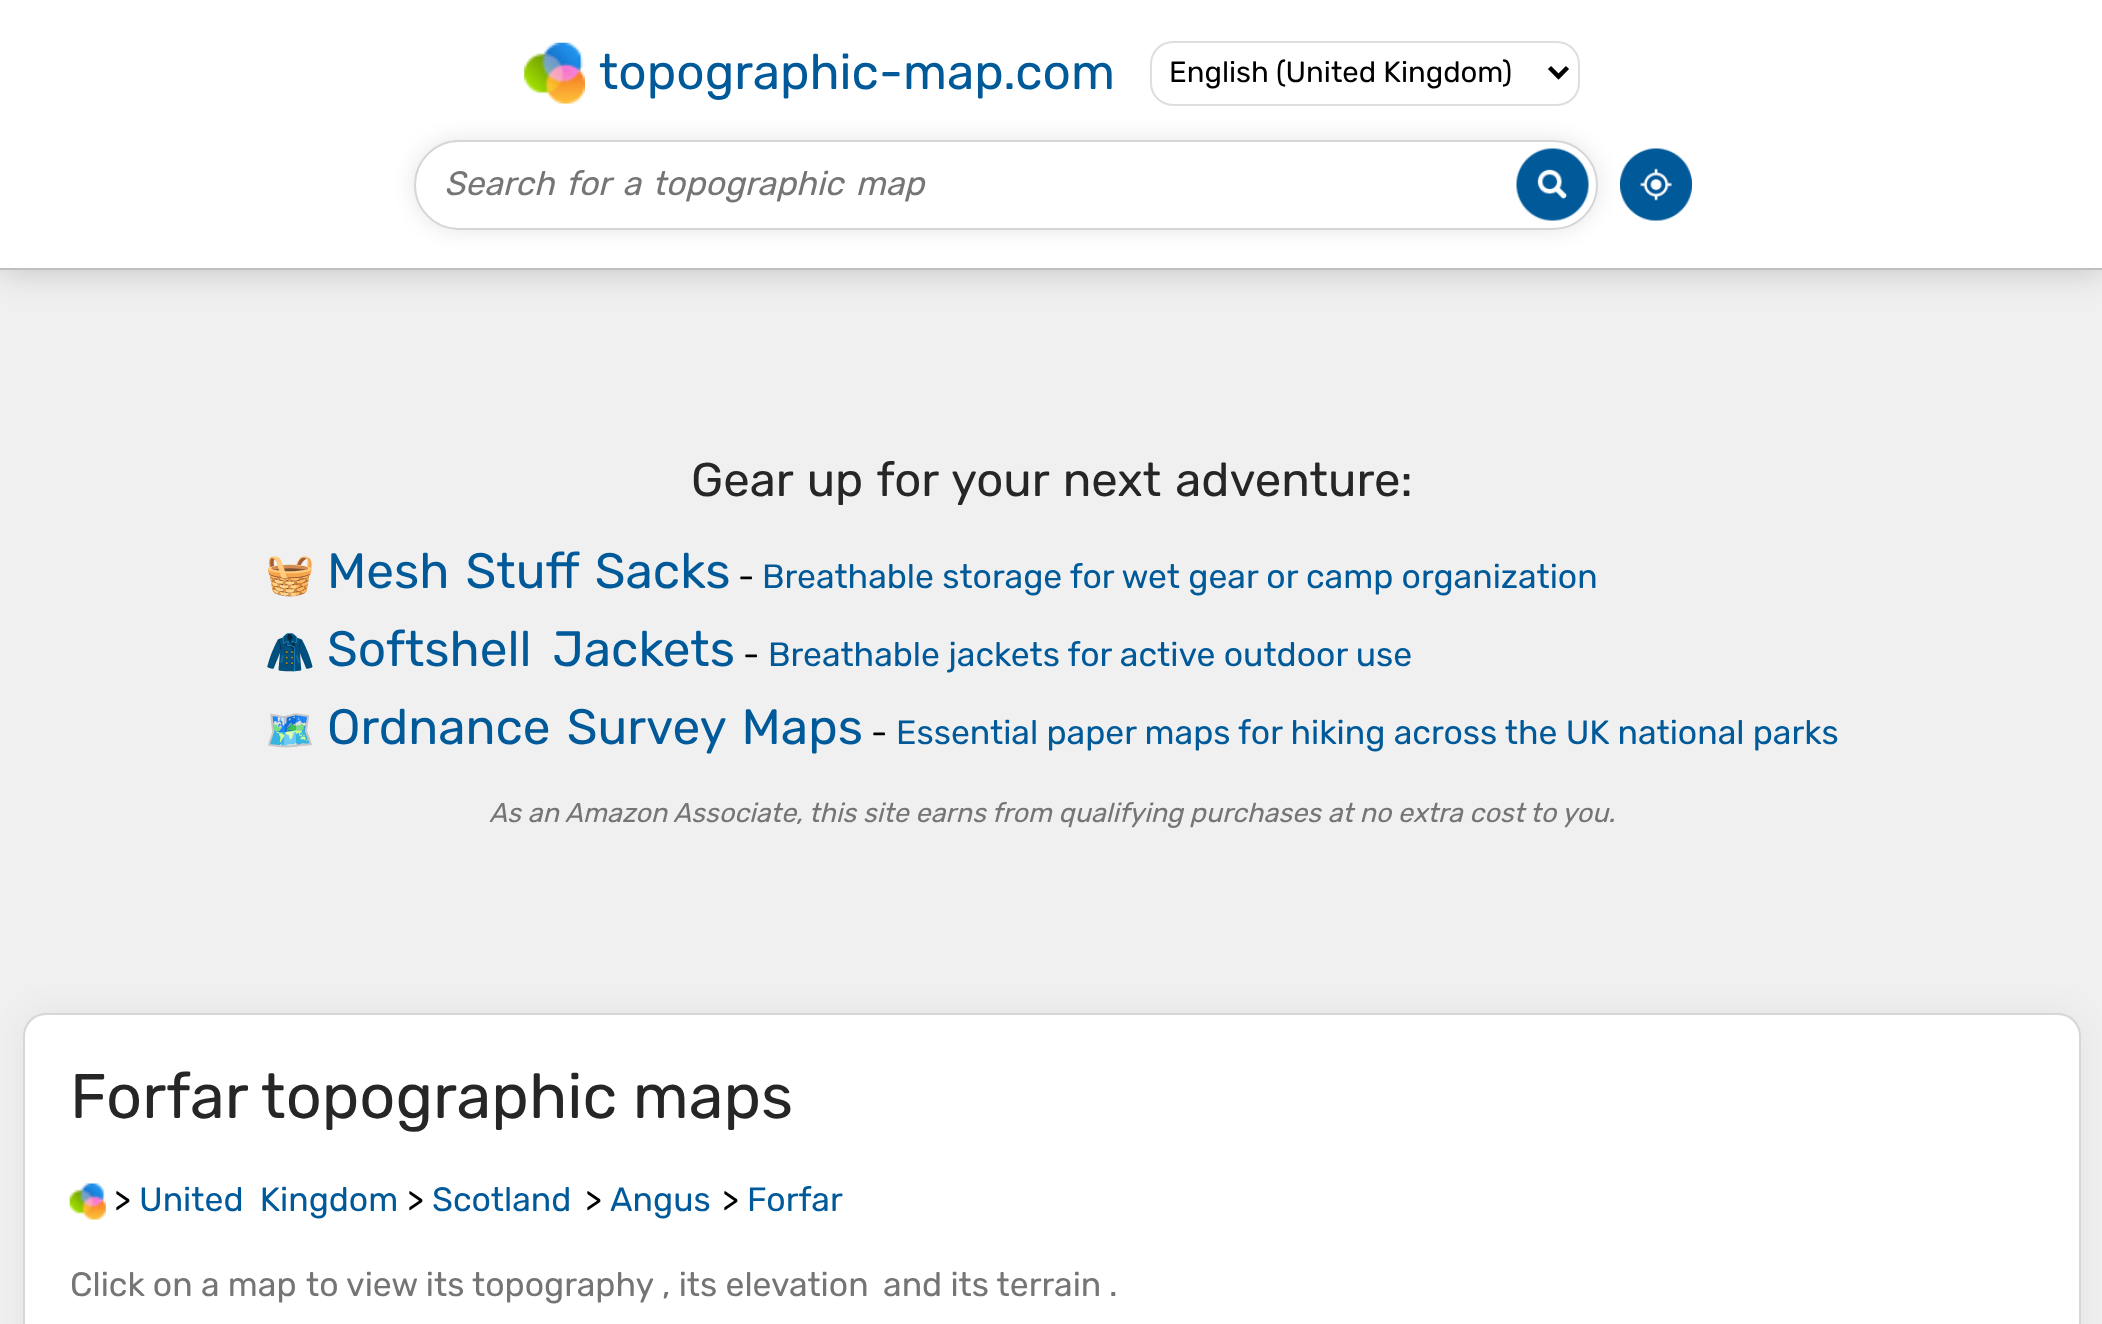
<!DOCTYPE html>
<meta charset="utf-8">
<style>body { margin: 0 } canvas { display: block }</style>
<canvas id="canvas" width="2102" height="1324"></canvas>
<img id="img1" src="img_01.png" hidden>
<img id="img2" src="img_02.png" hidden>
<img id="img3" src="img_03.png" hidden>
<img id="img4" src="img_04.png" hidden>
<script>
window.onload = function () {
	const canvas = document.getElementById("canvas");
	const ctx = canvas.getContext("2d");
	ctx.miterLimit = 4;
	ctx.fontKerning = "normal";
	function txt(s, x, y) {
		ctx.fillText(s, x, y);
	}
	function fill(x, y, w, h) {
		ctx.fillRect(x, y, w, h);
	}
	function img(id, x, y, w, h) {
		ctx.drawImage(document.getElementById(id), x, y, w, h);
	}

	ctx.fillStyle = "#F0F0F0";
	fill(0, 0, 2102, 1324);
	ctx.fillStyle = "rgba(0, 0, 0, 0.2)";
	ctx.filter = "blur(17px)";
	ctx.beginPath();
	ctx.rect(0, 0, 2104, 270);
	ctx.fill();
	ctx.filter = "none";
	ctx.fillStyle = "#FFFFFF";
	fill(0, 0, 2102, 268);
	ctx.fillStyle = "#BFBFBF";
	fill(0, 268, 2102, 2);
	img("img1", 524, 42, 61, 62);
	ctx.beginPath();
	ctx.roundRect(1151, 42, 428, 63, 22);
	ctx.strokeStyle = "#DEDEDE";
	ctx.lineWidth = 2;
	ctx.stroke();
	ctx.beginPath();
	ctx.moveTo(1549.5, 67.5);
	ctx.lineTo(1558.5, 76.5);
	ctx.lineTo(1567.5, 67.5);
	ctx.strokeStyle = "#000000";
	ctx.lineWidth = 4.5;
	ctx.stroke();
	ctx.save();
	ctx.beginPath();
	ctx.moveTo(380, 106);
	ctx.lineTo(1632, 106);
	ctx.lineTo(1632, 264);
	ctx.lineTo(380, 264);
	ctx.closePath();
	ctx.moveTo(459, 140);
	ctx.lineTo(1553, 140);
	ctx.bezierCurveTo(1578, 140, 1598, 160, 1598, 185);
	ctx.bezierCurveTo(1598, 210, 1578, 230, 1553, 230);
	ctx.lineTo(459, 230);
	ctx.bezierCurveTo(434, 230, 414, 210, 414, 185);
	ctx.bezierCurveTo(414, 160, 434, 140, 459, 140);
	ctx.closePath();
	ctx.clip("evenodd");
	ctx.fillStyle = "rgba(0, 0, 0, 0.1)";
	ctx.filter = "blur(11px)";
	ctx.beginPath();
	ctx.roundRect(414, 140, 1184, 90, 45);
	ctx.fill();
	ctx.filter = "none";
	ctx.restore();
	ctx.beginPath();
	ctx.roundRect(415, 141, 1182, 88, 44);
	ctx.strokeStyle = "#D6D6D6";
	ctx.lineWidth = 2;
	ctx.stroke();
	img("img2", 1516, 148, 73, 73);
	img("img3", 1620, 148, 72, 73);
	ctx.fillStyle = "rgba(0, 0, 0, 0.05)";
	ctx.filter = "blur(17px)";
	ctx.beginPath();
	ctx.roundRect(23, 1013, 2058, 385, 23);
	ctx.fill();
	ctx.filter = "none";
	ctx.fillStyle = "#FFFFFF";
	ctx.beginPath();
	ctx.roundRect(24, 1014, 2056, 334, 22);
	ctx.fill();
	ctx.stroke();
	img("img4", 69, 1183, 37, 37);
	ctx.font = "49.5px Rubik";
	ctx.fillStyle = "#005999";
	txt("topographic-map.com", 599, 89);
	ctx.font = "29.25px Rubik";
	ctx.fillStyle = "#000000";
	txt("English (United Kingdom)", 1169, 82);
	ctx.wordSpacing = "4px";
	ctx.font = "italic 33.75px Rubik";
	ctx.fillStyle = "#757575";
	txt("Search for a topographic map", 444, 195);
	ctx.wordSpacing = "2.5px";
	ctx.font = "47.25px Rubik";
	ctx.fillStyle = "#262626";
	txt("Gear up for your next adventure:", 691, 496);
	ctx.wordSpacing = "0px";
	ctx.font = "40px Noto Color Emoji";
	ctx.fillStyle = "#000000";
	txt("🧺", 265, 588);
	ctx.wordSpacing = "4px";
	ctx.font = "49.5px Rubik";
	ctx.fillStyle = "#005999";
	txt("Mesh Stuff Sacks", 327, 588);
	ctx.wordSpacing = "0px";
	ctx.font = "33.75px Rubik";
	ctx.fillStyle = "#000000";
	txt("-", 738, 588);
	ctx.fillStyle = "#005999";
	txt("Breathable storage for wet gear or camp organization", 762, 588);
	ctx.font = "40px Noto Color Emoji";
	ctx.fillStyle = "#000000";
	txt("🧥", 265, 666);
	ctx.wordSpacing = "9px";
	ctx.font = "49.5px Rubik";
	ctx.fillStyle = "#005999";
	txt("Softshell Jackets", 327, 666);
	ctx.wordSpacing = "0px";
	ctx.font = "33.75px Rubik";
	ctx.fillStyle = "#000000";
	txt("-", 743, 666);
	ctx.fillStyle = "#005999";
	txt("Breathable jackets for active outdoor use", 768, 666);
	ctx.font = "40px Noto Color Emoji";
	ctx.fillStyle = "#000000";
	txt("🗺️", 265, 744);
	ctx.wordSpacing = "4px";
	ctx.font = "49.5px Rubik";
	ctx.fillStyle = "#005999";
	txt("Ordnance Survey Maps", 327, 744);
	ctx.wordSpacing = "0px";
	ctx.font = "33.75px Rubik";
	ctx.fillStyle = "#000000";
	txt("-", 871, 744);
	ctx.fillStyle = "#005999";
	txt("Essential paper maps for hiking across the UK national parks", 896, 744);
	ctx.font = "italic 27px Rubik";
	ctx.fillStyle = "#757575";
	txt("As an Amazon Associate, this site earns from qualifying purchases at no extra cost to you.", 489, 822);
	ctx.font = "63px Rubik";
	ctx.fillStyle = "#262626";
	txt("Forfar", 70, 1118);
	txt("topographic maps", 261, 1118);
	ctx.font = "33.75px Rubik";
	ctx.fillStyle = "#000000";
	txt(">", 114, 1211);
	ctx.wordSpacing = "8px";
	ctx.fillStyle = "#005999";
	txt("United Kingdom", 139, 1211);
	ctx.wordSpacing = "0px";
	ctx.fillStyle = "#000000";
	txt(">", 407, 1211);
	ctx.fillStyle = "#005999";
	txt("Scotland", 432, 1211);
	ctx.fillStyle = "#000000";
	txt(">", 585, 1211);
	ctx.fillStyle = "#005999";
	txt("Angus", 610, 1211);
	ctx.fillStyle = "#000000";
	txt(">", 722, 1211);
	ctx.fillStyle = "#005999";
	txt("Forfar", 747, 1211);
	ctx.fillStyle = "#757575";
	txt("Click on a map", 70, 1296);
	txt("to view its topography", 306, 1296);
	txt(", its elevation", 662, 1296);
	txt("and its terrain", 883, 1296);
	txt(".", 1109, 1296);
};
</script>
